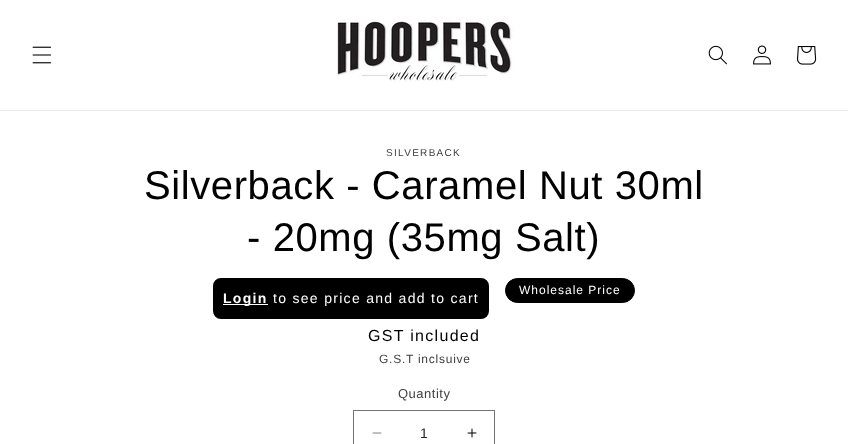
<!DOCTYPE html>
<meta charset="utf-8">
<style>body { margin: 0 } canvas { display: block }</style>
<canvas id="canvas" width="848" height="444"></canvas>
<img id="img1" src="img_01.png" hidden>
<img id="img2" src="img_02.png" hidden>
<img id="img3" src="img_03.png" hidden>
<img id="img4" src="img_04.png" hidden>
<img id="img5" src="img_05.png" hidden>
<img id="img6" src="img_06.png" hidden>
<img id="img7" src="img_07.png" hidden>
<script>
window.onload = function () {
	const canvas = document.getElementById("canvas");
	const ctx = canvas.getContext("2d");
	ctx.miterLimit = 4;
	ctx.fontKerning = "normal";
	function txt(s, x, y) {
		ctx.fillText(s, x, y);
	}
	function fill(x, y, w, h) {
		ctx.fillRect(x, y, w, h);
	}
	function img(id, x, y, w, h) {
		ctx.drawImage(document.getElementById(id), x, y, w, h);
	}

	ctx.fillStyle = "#FFFFFF";
	fill(0, 0, 848, 444);
	ctx.fillStyle = "#EBEBEB";
	fill(0, 110, 848, 1);
	img("img1", 32, 46, 20, 18);
	img("img2", 337, 19, 177, 63);
	img("img3", 708, 45, 19, 20);
	img("img4", 753, 45, 18, 20);
	img("img5", 797, 46, 20, 19);
	ctx.fillStyle = "#000000";
	ctx.beginPath();
	ctx.roundRect(505.5, 278.5, 129, 24, 12);
	ctx.fill();
	ctx.strokeStyle = "#000000";
	ctx.stroke();
	ctx.beginPath();
	ctx.roundRect(214, 279, 274, 39, 7);
	ctx.fill();
	ctx.lineWidth = 2;
	ctx.stroke();
	ctx.fillStyle = "#FFFFFF";
	fill(223, 304, 45, 1);
	img("img6", 372, 432, 10, 2);
	img("img7", 467, 428, 10, 10);
	ctx.strokeStyle = "#737373";
	ctx.lineWidth = 1;
	ctx.strokeRect(353.5, 410.5, 141, 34);
	ctx.letterSpacing = "1.3px";
	ctx.font = "10px Liberation Sans";
	ctx.fillStyle = "#404040";
	txt("SILVERBACK", 386, 156);
	ctx.letterSpacing = "0.6px";
	ctx.font = "40px Liberation Sans";
	ctx.fillStyle = "#000000";
	txt("Silverback - Caramel Nut 30ml", 144, 199);
	txt("- 20mg (35mg Salt)", 247, 251);
	ctx.letterSpacing = "1px";
	ctx.font = "12px Liberation Sans";
	ctx.fillStyle = "#FFFFFF";
	txt("Wholesale Price", 519, 294);
	ctx.letterSpacing = "1.3px";
	ctx.font = "bold 14px Liberation Sans";
	txt("Login", 223, 303);
	ctx.font = "14px Liberation Sans";
	txt("to see price and add to cart", 273, 303);
	ctx.font = "16px Liberation Sans";
	ctx.fillStyle = "#000000";
	txt("GST included", 368, 341);
	ctx.letterSpacing = "0.75px";
	ctx.font = "12px Liberation Sans";
	ctx.fillStyle = "#404040";
	txt("G.S.T inclsuive", 379, 363);
	ctx.letterSpacing = "0.5px";
	ctx.font = "13px Liberation Sans";
	txt("Quantity", 398, 398);
	ctx.letterSpacing = "0px";
	ctx.font = "14px Liberation Sans";
	ctx.fillStyle = "#262626";
	txt("1", 420, 438);
};
</script>
